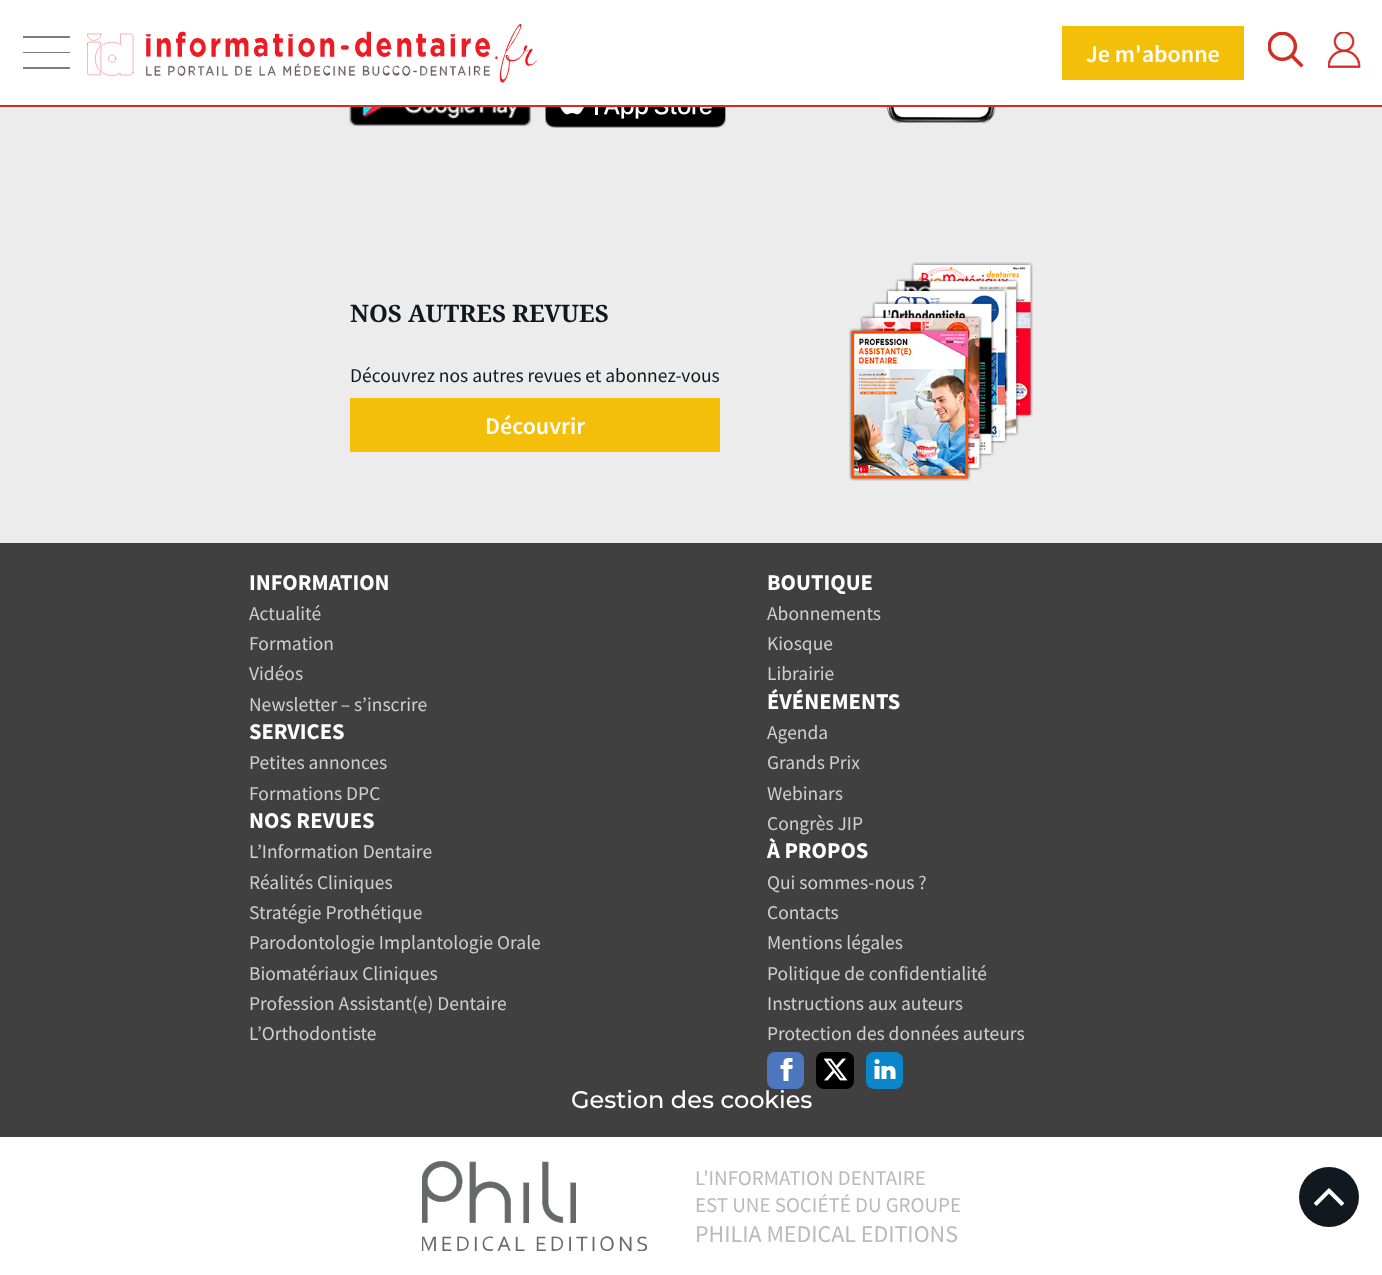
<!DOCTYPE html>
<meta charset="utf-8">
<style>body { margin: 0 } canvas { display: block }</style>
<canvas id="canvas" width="1382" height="1275"></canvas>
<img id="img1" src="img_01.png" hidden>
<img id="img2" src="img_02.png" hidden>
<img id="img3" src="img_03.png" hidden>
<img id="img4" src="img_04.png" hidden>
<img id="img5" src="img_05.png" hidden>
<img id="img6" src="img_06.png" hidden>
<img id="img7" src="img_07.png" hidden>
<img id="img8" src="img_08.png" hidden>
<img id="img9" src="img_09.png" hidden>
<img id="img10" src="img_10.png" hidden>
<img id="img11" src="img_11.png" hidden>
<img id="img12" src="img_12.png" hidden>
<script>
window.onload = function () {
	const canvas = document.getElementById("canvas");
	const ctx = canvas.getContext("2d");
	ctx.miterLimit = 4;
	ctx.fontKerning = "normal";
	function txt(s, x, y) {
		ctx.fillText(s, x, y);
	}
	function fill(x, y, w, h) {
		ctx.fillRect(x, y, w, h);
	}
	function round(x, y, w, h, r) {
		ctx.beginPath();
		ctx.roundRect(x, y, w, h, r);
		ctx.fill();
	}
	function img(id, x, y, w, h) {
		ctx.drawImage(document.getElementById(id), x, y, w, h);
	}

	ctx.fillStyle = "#ECECEC";
	fill(0, 0, 1382, 1275);
	ctx.fillStyle = "#FFFFFF";
	fill(0, 0, 1382, 105);
	ctx.fillStyle = "#D22E26";
	fill(0, 105, 1382, 2);
	ctx.save();
	ctx.beginPath();
	ctx.rect(23, 29, 48, 48);
	ctx.clip();
	ctx.fillStyle = "#7C7C7C";
	ctx.beginPath();
	ctx.moveTo(22, 36);
	ctx.lineTo(22, 38);
	ctx.lineTo(70, 38);
	ctx.lineTo(70, 36);
	ctx.closePath();
	ctx.moveTo(22, 53);
	ctx.lineTo(70, 53);
	ctx.lineTo(70, 52);
	ctx.lineTo(22, 52);
	ctx.closePath();
	ctx.moveTo(22, 69);
	ctx.lineTo(70, 69);
	ctx.lineTo(70, 67);
	ctx.lineTo(22, 67);
	ctx.closePath();
	ctx.fill();
	ctx.restore();
	img("img1", 87, 24, 450, 59);
	ctx.fillStyle = "#F4BF08";
	fill(1062, 26, 182, 54);
	img("img2", 1268, 32, 36, 36);
	img("img3", 1328, 32, 33, 36);
	img("img4", 349, 107, 182, 19);
	img("img5", 545, 107, 181, 21);
	img("img6", 886, 107, 110, 16);
	fill(350, 398, 370, 54);
	img("img7", 849, 262, 184, 219);
	ctx.fillStyle = "#404040";
	fill(0, 543, 1382, 594);
	ctx.fillStyle = "#4C76BE";
	round(767, 1052, 37, 37, 8);
	img("img8", 780, 1058, 13, 23);
	ctx.fillStyle = "#000000";
	round(816, 1052, 38, 37, 8);
	img("img9", 824, 1058, 24, 23);
	ctx.fillStyle = "#0B86CA";
	round(866, 1052, 37, 37, 8);
	img("img10", 874, 1059, 22, 20);
	ctx.fillStyle = "#FFFFFF";
	fill(0, 1137, 1382, 138);
	img("img11", 422, 1161, 225, 90);
	ctx.fillStyle = "#12181F";
	ctx.beginPath();
	ctx.arc(1329, 1197, 30, 0, Math.PI * 2);
	ctx.fill();
	img("img12", 1314, 1188, 30, 18);
	ctx.font = "600 24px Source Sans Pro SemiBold";
	ctx.fillStyle = "#FFFFFF";
	txt("Je m'abonne", 1086, 62);
	ctx.font = "bold 24px Noto Serif";
	ctx.fillStyle = "#12181F";
	txt("NOS AUTRES REVUES", 350, 322);
	ctx.font = "19.5px Source Sans Pro";
	txt("Découvrez nos autres revues et abonnez-vous", 350, 382);
	ctx.font = "600 24px Source Sans Pro SemiBold";
	ctx.fillStyle = "#FFFFFF";
	txt("Découvrir", 485, 434);
	ctx.font = "bold 22.5px Source Sans Pro";
	txt("INFORMATION", 249, 590);
	ctx.font = "19.5px Source Sans Pro";
	ctx.fillStyle = "#CFCFCF";
	txt("Actualité", 249, 620);
	txt("Formation", 249, 650);
	txt("Vidéos", 249, 680);
	txt("Newsletter – s’inscrire", 249, 711);
	ctx.font = "bold 22.5px Source Sans Pro";
	ctx.fillStyle = "#FFFFFF";
	txt("BOUTIQUE", 767, 590);
	ctx.font = "19.5px Source Sans Pro";
	ctx.fillStyle = "#CFCFCF";
	txt("Abonnements", 767, 620);
	txt("Kiosque", 767, 650);
	txt("Librairie", 767, 680);
	ctx.font = "bold 22.5px Source Sans Pro";
	ctx.fillStyle = "#FFFFFF";
	txt("SERVICES", 249, 739);
	ctx.font = "19.5px Source Sans Pro";
	ctx.fillStyle = "#CFCFCF";
	txt("Petites annonces", 249, 769);
	txt("Formations DPC", 249, 800);
	ctx.font = "bold 22.5px Source Sans Pro";
	ctx.fillStyle = "#FFFFFF";
	txt("ÉVÉNEMENTS", 767, 709);
	ctx.font = "19.5px Source Sans Pro";
	ctx.fillStyle = "#CFCFCF";
	txt("Agenda", 767, 739);
	txt("Grands Prix", 767, 769);
	txt("Webinars", 767, 800);
	txt("Congrès JIP", 767, 830);
	ctx.font = "bold 22.5px Source Sans Pro";
	ctx.fillStyle = "#FFFFFF";
	txt("NOS REVUES", 249, 828);
	ctx.font = "19.5px Source Sans Pro";
	ctx.fillStyle = "#CFCFCF";
	txt("L’Information Dentaire", 249, 858);
	txt("Réalités Cliniques", 249, 889);
	txt("Stratégie Prothétique", 249, 919);
	txt("Parodontologie Implantologie Orale", 249, 949);
	txt("Biomatériaux Cliniques", 249, 980);
	txt("Profession Assistant(e) Dentaire", 249, 1010);
	txt("L’Orthodontiste", 249, 1040);
	ctx.font = "bold 22.5px Source Sans Pro";
	ctx.fillStyle = "#FFFFFF";
	txt("À PROPOS", 767, 858);
	ctx.font = "19.5px Source Sans Pro";
	ctx.fillStyle = "#CFCFCF";
	txt("Qui sommes-nous ?", 767, 889);
	txt("Contacts", 767, 919);
	txt("Mentions légales", 767, 949);
	txt("Politique de confidentialité", 767, 980);
	txt("Instructions aux auteurs", 767, 1010);
	txt("Protection des données auteurs", 767, 1040);
	ctx.font = "500 24px Montserrat";
	ctx.fillStyle = "#FFFFFF";
	txt("Gestion des cookies", 571, 1108);
	ctx.font = "21px Source Sans Pro";
	ctx.fillStyle = "#BABABA";
	txt("L'INFORMATION DENTAIRE", 695, 1185);
	txt("EST UNE SOCIÉTÉ DU GROUPE", 695, 1212);
	ctx.font = "24px Source Sans Pro";
	txt("PHILIA MEDICAL EDITIONS", 695, 1242);
};
</script>
